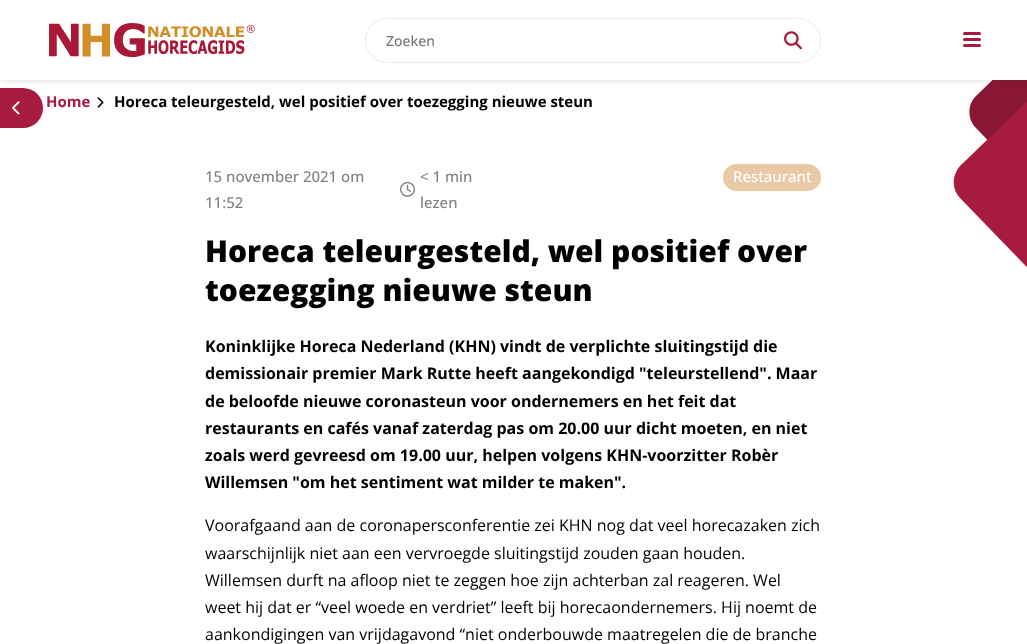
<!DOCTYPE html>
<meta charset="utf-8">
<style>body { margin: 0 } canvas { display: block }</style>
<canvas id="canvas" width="1027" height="644"></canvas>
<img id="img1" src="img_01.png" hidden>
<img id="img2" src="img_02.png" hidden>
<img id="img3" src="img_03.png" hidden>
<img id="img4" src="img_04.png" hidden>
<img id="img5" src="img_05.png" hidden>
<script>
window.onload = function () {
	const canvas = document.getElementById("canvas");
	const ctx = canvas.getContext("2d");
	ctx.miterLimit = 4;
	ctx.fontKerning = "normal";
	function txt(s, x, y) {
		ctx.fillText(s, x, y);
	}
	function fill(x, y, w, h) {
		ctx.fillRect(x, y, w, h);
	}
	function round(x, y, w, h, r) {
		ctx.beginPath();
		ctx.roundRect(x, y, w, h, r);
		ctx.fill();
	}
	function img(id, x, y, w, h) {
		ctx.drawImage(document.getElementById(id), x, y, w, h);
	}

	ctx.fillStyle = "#FFFFFF";
	fill(0, 0, 1027, 644);
	ctx.fillStyle = "#A71B40";
	ctx.beginPath();
	ctx.roundRect(0, 88, 43, 40, [0, 20, 20, 0]);
	ctx.fill();
	ctx.fillStyle = "#871734";
	ctx.beginPath();
	ctx.moveTo(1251, -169);
	ctx.lineTo(977, 95);
	ctx.bezierCurveTo(967, 104, 967, 119, 976, 128);
	ctx.lineTo(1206, 367);
	ctx.bezierCurveTo(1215, 376, 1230, 376, 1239, 367);
	ctx.lineTo(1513, 103);
	ctx.bezierCurveTo(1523, 94, 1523, 79, 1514, 70);
	ctx.lineTo(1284, -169);
	ctx.bezierCurveTo(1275, -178, 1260, -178, 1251, -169);
	ctx.closePath();
	ctx.fill("evenodd");
	ctx.fillStyle = "rgba(61, 61, 61, 0.2)";
	ctx.filter = "blur(3.5px)";
	ctx.beginPath();
	ctx.rect(0, 0, 1027, 80);
	ctx.fill();
	ctx.filter = "none";
	ctx.fillStyle = "#FFFFFF";
	fill(0, 0, 1027, 80);
	img("img1", 49, 23, 206, 34);
	ctx.beginPath();
	ctx.roundRect(365.5, 18.5, 455, 44, 22);
	ctx.strokeStyle = "#EDEAEF";
	ctx.stroke();
	img("img2", 784, 31, 18, 19);
	ctx.fillStyle = "#A71B40";
	round(963, 32, 18, 3, 1.5);
	round(963, 38, 18, 3, 1.5);
	round(963, 44, 18, 3, 1.5);
	img("img3", 12, 101, 8, 14);
	img("img4", 97, 97, 7, 11);
	ctx.beginPath();
	ctx.moveTo(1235, -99);
	ctx.lineTo(961, 165);
	ctx.bezierCurveTo(952, 174, 951, 189, 960, 198);
	ctx.lineTo(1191, 437);
	ctx.bezierCurveTo(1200, 446, 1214, 446, 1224, 437);
	ctx.lineTo(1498, 173);
	ctx.bezierCurveTo(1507, 164, 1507, 149, 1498, 140);
	ctx.lineTo(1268, -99);
	ctx.bezierCurveTo(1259, -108, 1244, -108, 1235, -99);
	ctx.closePath();
	ctx.fill("evenodd");
	img("img5", 400, 181, 15, 16);
	ctx.fillStyle = "#EAC9A6";
	round(723, 164, 98, 27, 13.5);
	ctx.font = "500 14px Open Sans";
	ctx.fillStyle = "#757575";
	txt("Zoeken", 386, 46);
	ctx.font = "bold 15px Open Sans";
	ctx.fillStyle = "#A71B40";
	txt("Home", 46, 107);
	ctx.fillStyle = "#000000";
	txt("Horeca teleurgesteld, wel positief over toezegging nieuwe steun", 114, 107);
	ctx.font = "500 15px Open Sans";
	ctx.fillStyle = "#808080";
	txt("15 november 2021 om", 205, 182);
	txt("11:52", 205, 208);
	txt("< 1 min", 420, 182);
	txt("lezen", 420, 208);
	ctx.fillStyle = "#FFFFFF";
	txt("Restaurant", 733, 182);
	ctx.font = "800 30px Open Sans";
	ctx.fillStyle = "#000000";
	txt("Horeca teleurgesteld, wel positief over", 205, 262);
	txt("toezegging nieuwe steun", 205, 301);
	ctx.font = "bold 16px Open Sans";
	txt("Koninklijke Horeca Nederland (KHN) vindt de verplichte sluitingstijd die", 205, 352);
	txt("demissionair premier Mark Rutte heeft aangekondigd \"teleurstellend\". Maar", 205, 379);
	txt("de beloofde nieuwe coronasteun voor ondernemers en het feit dat", 205, 407);
	txt("restaurants en cafés vanaf zaterdag pas om 20.00 uur dicht moeten, en niet", 205, 434);
	txt("zoals werd gevreesd om 19.00 uur, helpen volgens KHN-voorzitter Robèr", 205, 461);
	txt("Willemsen \"om het sentiment wat milder te maken\".", 205, 488);
	ctx.font = "16px Open Sans";
	txt("Voorafgaand aan de coronapersconferentie zei KHN nog dat veel horecazaken zich", 205, 531);
	txt("waarschijnlijk niet aan een vervroegde sluitingstijd zouden gaan houden.", 205, 559);
	txt("Willemsen durft na afloop niet te zeggen hoe zijn achterban zal reageren. Wel", 205, 586);
	txt("weet hij dat er “veel woede en verdriet” leeft bij horecaondernemers. Hij noemt de", 205, 613);
	txt("aankondigingen van vrijdagavond “niet onderbouwde maatregelen die de branche", 205, 640);
};
</script>
